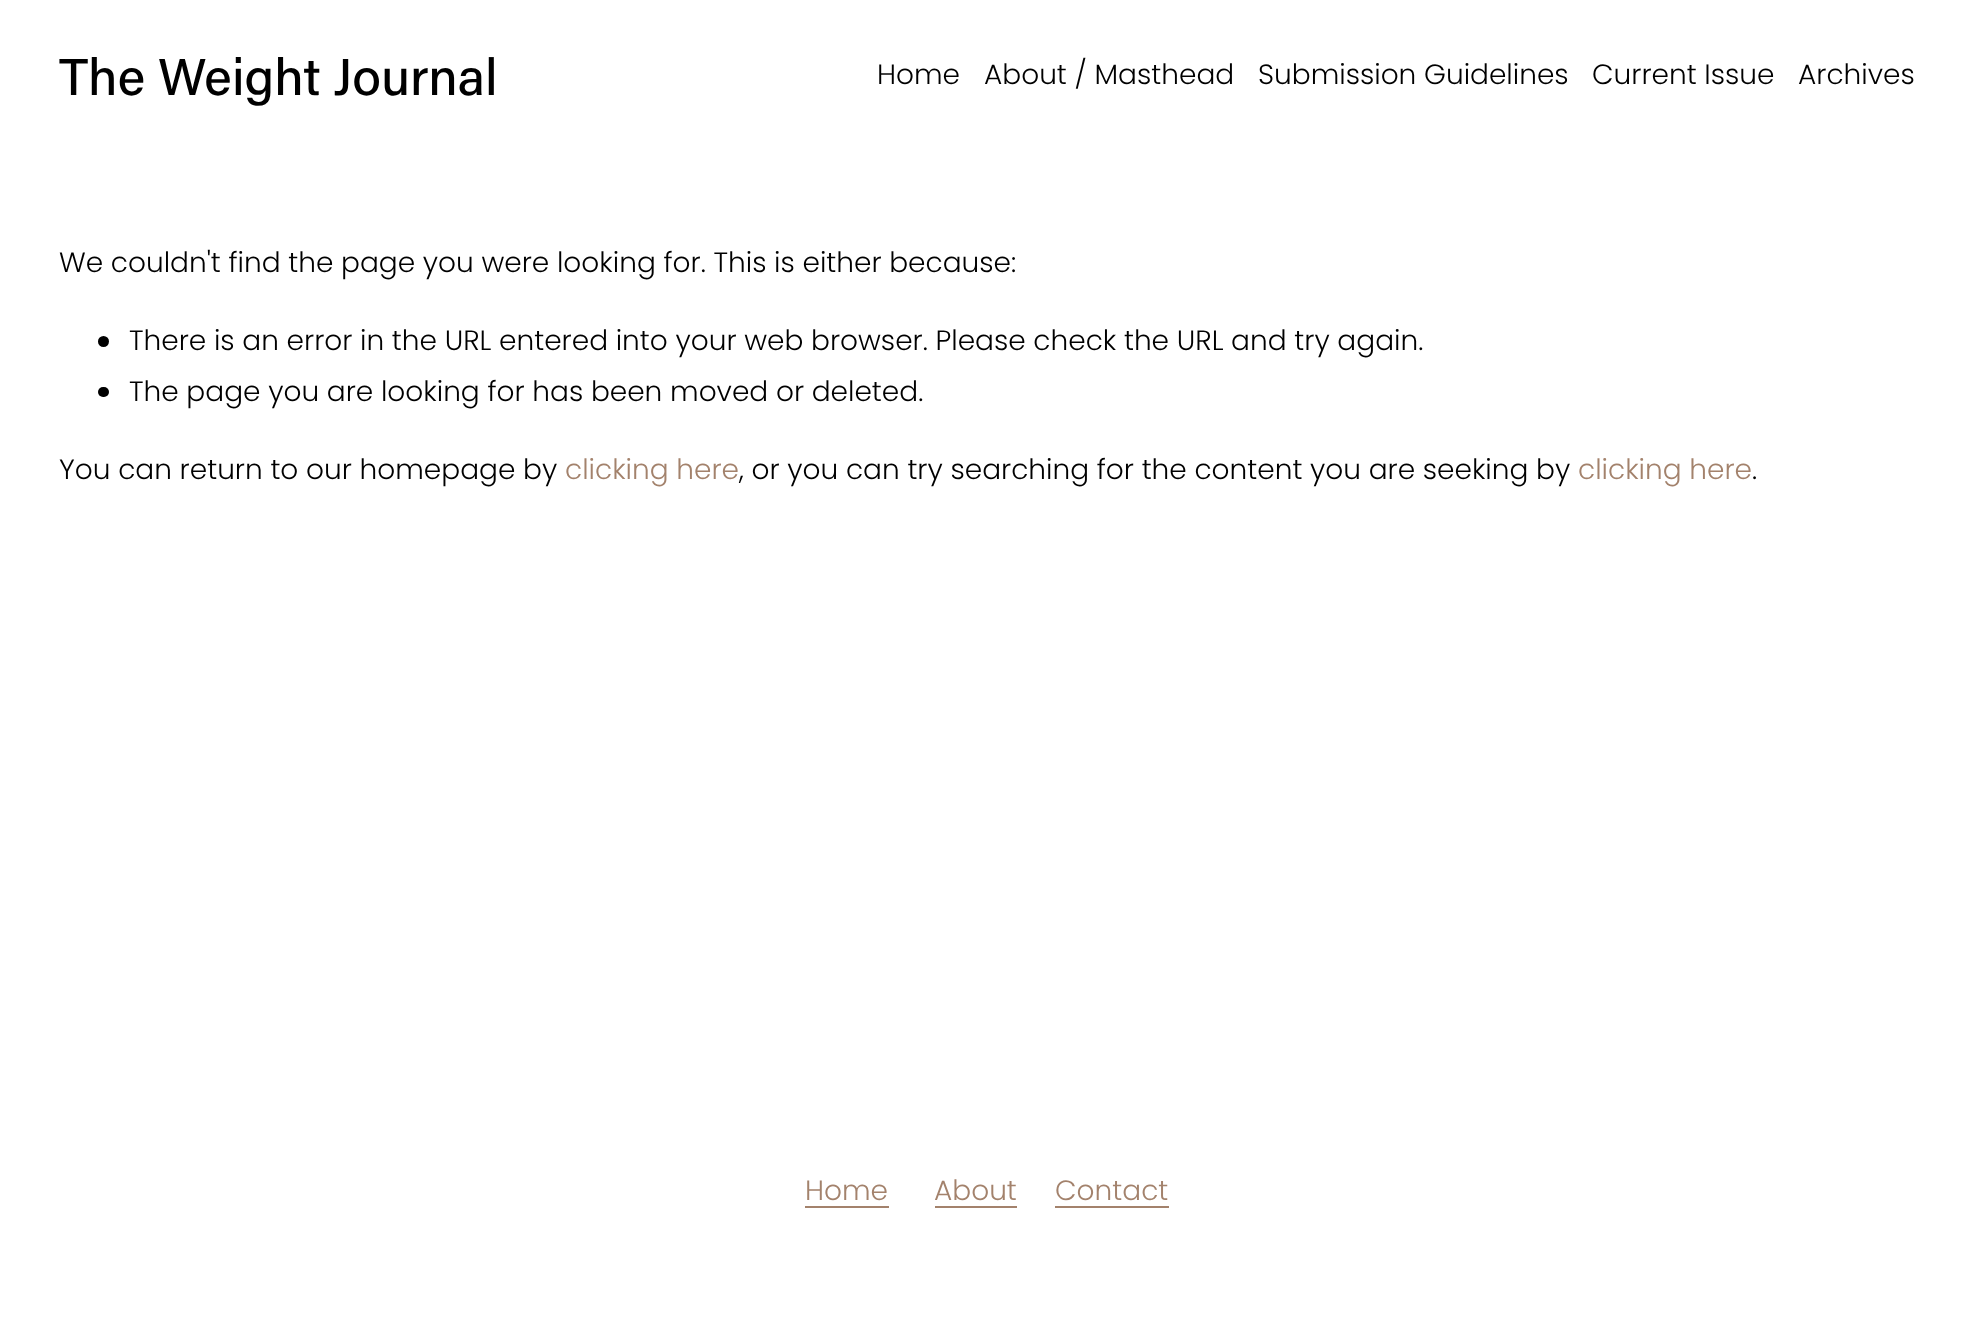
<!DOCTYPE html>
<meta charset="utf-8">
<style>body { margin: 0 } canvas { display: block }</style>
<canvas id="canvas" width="1973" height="1337"></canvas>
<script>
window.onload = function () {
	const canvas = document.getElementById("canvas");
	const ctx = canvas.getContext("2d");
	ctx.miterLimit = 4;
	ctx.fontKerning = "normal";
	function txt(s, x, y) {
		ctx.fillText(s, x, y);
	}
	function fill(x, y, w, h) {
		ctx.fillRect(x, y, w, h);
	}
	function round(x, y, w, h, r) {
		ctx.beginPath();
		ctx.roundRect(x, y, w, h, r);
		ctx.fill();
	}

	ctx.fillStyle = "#FFFFFF";
	fill(0, 0, 1973, 1337);
	ctx.fillStyle = "#000000";
	ctx.beginPath();
	ctx.arc(103.5, 341.5, 5.5, 0, Math.PI * 2);
	ctx.fill();
	round(98, 387, 11, 10, 5);
	ctx.fillStyle = "#A3826C";
	fill(805, 1206, 84, 2);
	fill(935, 1206, 82, 2);
	fill(1055, 1206, 114, 2);
	ctx.font = "500 51.75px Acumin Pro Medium";
	ctx.fillStyle = "#000000";
	txt("The Weight Journal", 59, 95);
	ctx.font = "300 28px Poppins";
	txt("Home", 877, 84);
	txt("About / Masthead", 984, 84);
	txt("Submission Guidelines", 1258, 84);
	txt("Current Issue", 1592, 84);
	txt("Archives", 1798, 84);
	txt("We couldn't find the page you were looking for. This is either because:", 59, 272);
	txt("There is an error in the URL entered into your web browser. Please check the URL and try again.", 129, 350);
	txt("The page you are looking for has been moved or deleted.", 129, 401);
	txt("You can return to our homepage by", 59, 479);
	ctx.fillStyle = "#A3826C";
	txt("clicking here", 565, 479);
	ctx.fillStyle = "#000000";
	txt(", or you can try searching for the content you are seeking by", 739, 479);
	ctx.fillStyle = "#A3826C";
	txt("clicking here", 1578, 479);
	ctx.fillStyle = "#000000";
	txt(".", 1752, 479);
	ctx.fillStyle = "#A3826C";
	txt("Home", 805, 1200);
	txt("About", 934, 1200);
	txt("Contact", 1055, 1200);
};
</script>
